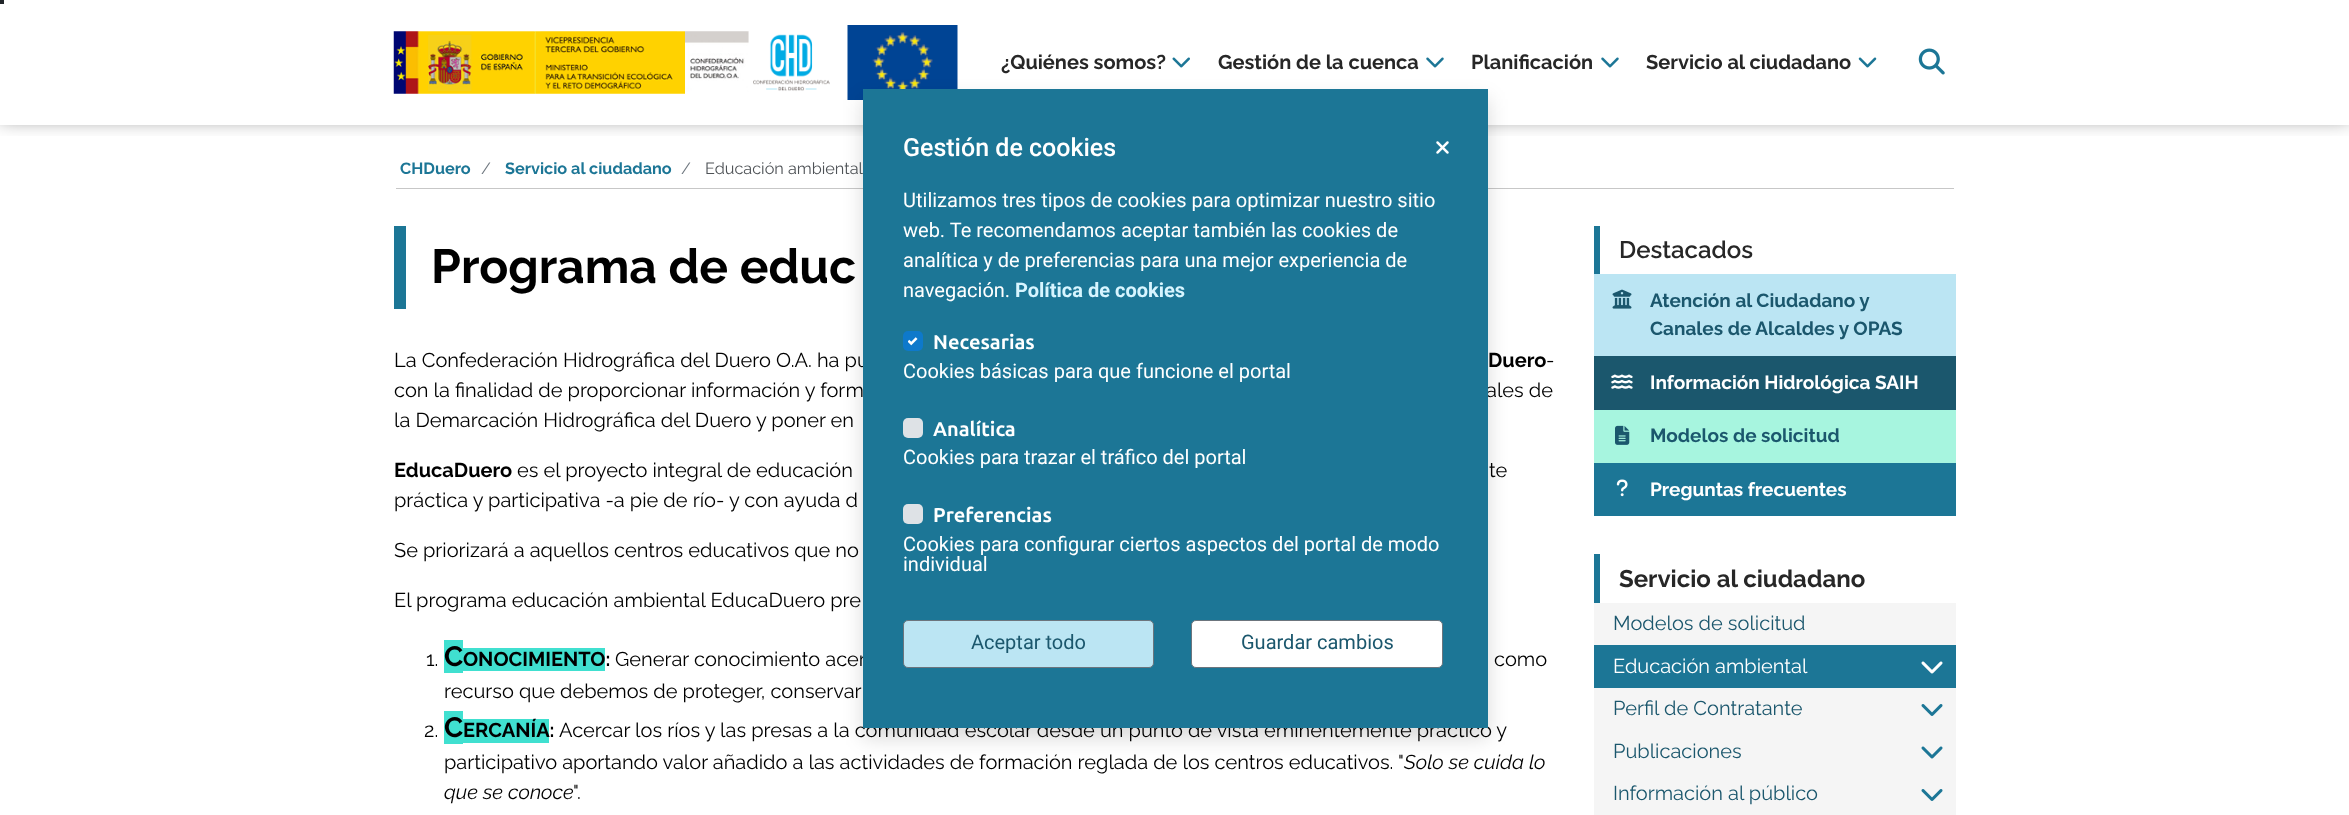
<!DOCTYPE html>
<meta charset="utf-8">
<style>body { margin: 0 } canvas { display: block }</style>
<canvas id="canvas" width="2349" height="815"></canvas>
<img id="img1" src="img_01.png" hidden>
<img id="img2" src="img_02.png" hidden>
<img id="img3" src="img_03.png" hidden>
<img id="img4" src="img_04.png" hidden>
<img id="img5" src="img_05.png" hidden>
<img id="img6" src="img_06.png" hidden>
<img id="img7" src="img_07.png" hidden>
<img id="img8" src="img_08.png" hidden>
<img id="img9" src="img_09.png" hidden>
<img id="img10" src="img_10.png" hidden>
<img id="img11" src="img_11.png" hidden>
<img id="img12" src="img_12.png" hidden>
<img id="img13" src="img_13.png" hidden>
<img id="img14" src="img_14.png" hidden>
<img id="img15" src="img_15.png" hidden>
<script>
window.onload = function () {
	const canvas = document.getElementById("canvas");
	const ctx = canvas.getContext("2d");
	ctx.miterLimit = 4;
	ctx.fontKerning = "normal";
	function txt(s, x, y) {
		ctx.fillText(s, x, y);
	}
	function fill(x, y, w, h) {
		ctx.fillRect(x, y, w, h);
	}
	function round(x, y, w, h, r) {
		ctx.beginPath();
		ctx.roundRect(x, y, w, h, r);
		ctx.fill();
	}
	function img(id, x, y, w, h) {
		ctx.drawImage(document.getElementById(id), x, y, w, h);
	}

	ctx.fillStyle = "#FFFFFF";
	fill(0, 0, 2349, 815);
	ctx.save();
	ctx.beginPath();
	ctx.rect(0, 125, 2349, 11);
	ctx.clip();
	ctx.fillStyle = "rgba(0, 0, 0, 0.5)";
	ctx.filter = "blur(9.5px)";
	ctx.beginPath();
	ctx.rect(0, -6, 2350, 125);
	ctx.fill();
	ctx.filter = "none";
	ctx.restore();
	img("img1", 393, 31, 437, 63);
	img("img2", 847, 25, 111, 75);
	img("img3", 1172, 57, 18, 11);
	img("img4", 1426, 57, 18, 11);
	img("img4", 1601, 57, 18, 11);
	img("img5", 1858, 57, 19, 11);
	img("img6", 1918, 48, 27, 27);
	ctx.fillStyle = "#C7C7C7";
	fill(396, 188, 1558, 1);
	ctx.fillStyle = "#1C7696";
	fill(394, 226, 12, 83);
	ctx.fillStyle = "#40E0D0";
	fill(444, 640, 19, 33);
	fill(463, 648, 142, 23);
	fill(444, 711, 19, 33);
	fill(463, 719, 86, 24);
	ctx.fillStyle = "#1C7696";
	fill(1594, 226, 6, 48);
	ctx.fillStyle = "#BBE5F3";
	fill(1594, 274, 362, 82);
	img("img7", 1612, 289, 20, 20);
	ctx.fillStyle = "#1B576D";
	fill(1594, 356, 362, 54);
	img("img8", 1611, 374, 22, 15);
	ctx.fillStyle = "#A7F5DF";
	fill(1594, 410, 362, 53);
	img("img9", 1615, 425, 15, 20);
	ctx.fillStyle = "#1C7696";
	fill(1594, 463, 362, 53);
	img("img10", 1616, 479, 12, 18);
	fill(1594, 554, 6, 49);
	ctx.fillStyle = "#F5F5F5";
	fill(1594, 603, 362, 212);
	ctx.fillStyle = "#1C7696";
	fill(1594, 645, 362, 43);
	img("img11", 1921, 661, 22, 13);
	img("img12", 1921, 704, 22, 12);
	img("img13", 1921, 746, 22, 13);
	img("img12", 1921, 789, 22, 12);
	ctx.fillStyle = "#212529";
	fill(0, 0, 4, 4);
	ctx.fillStyle = "rgba(0, 0, 0, 0.15)";
	ctx.filter = "blur(10px)";
	ctx.beginPath();
	ctx.rect(863, 99, 625, 639);
	ctx.fill();
	ctx.filter = "none";
	ctx.font = "bold 20px Raleway";
	ctx.fillStyle = "#272727";
	txt("¿Quiénes somos?", 1001, 69);
	txt("Gestión de la cuenca", 1218, 69);
	txt("Planificación", 1471, 69);
	txt("Servicio al ciudadano", 1646, 69);
	ctx.font = "bold 16.25px Raleway";
	ctx.fillStyle = "#1C7696";
	txt("CHDuero", 400, 174);
	ctx.font = "16.25px Raleway";
	ctx.fillStyle = "#6C757D";
	txt("/", 481, 174);
	ctx.font = "bold 16.25px Raleway";
	ctx.fillStyle = "#1C7696";
	txt("Servicio al ciudadano", 505, 174);
	ctx.font = "16.25px Raleway";
	ctx.fillStyle = "#6C757D";
	txt("/", 681, 174);
	ctx.fillStyle = "#4E5256";
	txt("Educación ambiental", 705, 174);
	ctx.font = "bold 48px Raleway";
	ctx.fillStyle = "#000000";
	txt("Programa de educ", 431, 283);
	ctx.font = "20px Raleway";
	txt("La Confederación Hidrográfica del Duero O.A. ha pu", 394, 367);
	ctx.font = "bold 20px Raleway";
	txt("Duero", 1488, 367);
	ctx.font = "20px Raleway";
	txt("-", 1546, 367);
	txt("con la finalidad de proporcionar información y form", 394, 397);
	txt("ales de", 1486, 397);
	txt("la Demarcación Hidrográfica del Duero y poner en", 394, 427);
	ctx.font = "bold 20px Raleway";
	txt("EducaDuero", 394, 477);
	ctx.font = "20px Raleway";
	txt("es el proyecto integral de educación", 517, 477);
	txt("te", 1489, 477);
	txt("práctica y participativa -a pie de río- y con ayuda d", 394, 507);
	txt("Se priorizará a aquellos centros educativos que no", 394, 557);
	txt("El programa educación ambiental EducaDuero pre", 394, 607);
	txt("1.", 426, 666);
	ctx.font = "bold 28px Raleway";
	txt("C", 444, 666);
	ctx.font = "bold 20px Raleway";
	txt("ONOCIMIENTO:", 463, 666);
	ctx.font = "20px Raleway";
	txt("Generar conocimiento acer", 615, 666);
	txt("como", 1494, 666);
	txt("recurso que debemos de proteger, conservar", 444, 698);
	txt("2.", 424, 737);
	ctx.font = "bold 28px Raleway";
	txt("C", 444, 737);
	ctx.font = "bold 20px Raleway";
	txt("ERCANÍA:", 463, 737);
	ctx.font = "20px Raleway";
	txt("Acercar los ríos y las presas a la comunidad escolar desde un punto de vista eminentemente práctico y", 559, 737);
	txt("participativo aportando valor añadido a las actividades de formación reglada de los centros educativos. \"", 444, 769);
	ctx.font = "italic 20px Raleway";
	txt("Solo se cuida lo", 1404, 769);
	txt("que se conoce", 444, 799);
	ctx.font = "20px Raleway";
	txt("\".", 573, 799);
	ctx.font = "600 24px Raleway";
	ctx.fillStyle = "#272727";
	txt("Destacados", 1619, 258);
	ctx.font = "bold 19px Raleway";
	ctx.fillStyle = "#1B576D";
	txt("Atención al Ciudadano y", 1650, 307);
	txt("Canales de Alcaldes y OPAS", 1650, 335);
	ctx.fillStyle = "#FFFFFF";
	txt("Información Hidrológica SAIH", 1650, 389);
	ctx.fillStyle = "#1B576D";
	txt("Modelos de solicitud", 1650, 442);
	ctx.fillStyle = "#FFFFFF";
	txt("Preguntas frecuentes", 1650, 496);
	ctx.font = "bold 24px Raleway";
	ctx.fillStyle = "#272727";
	txt("Servicio al ciudadano", 1619, 587);
	ctx.font = "20px Raleway";
	ctx.fillStyle = "#1B576D";
	txt("Modelos de solicitud", 1613, 630);
	ctx.fillStyle = "#FFFFFF";
	txt("Educación ambiental", 1613, 673);
	ctx.fillStyle = "#1B576D";
	txt("Perfil de Contratante", 1613, 715);
	txt("Publicaciones", 1613, 758);
	txt("Información al público", 1613, 800);
	ctx.fillStyle = "#1C7696";
	fill(863, 89, 625, 639);
	ctx.font = "500 25px Roboto";
	ctx.fillStyle = "#FFFFFF";
	txt("Gestión de cookies", 903, 156);
	img("img14", 1436, 141, 13, 13);
	ctx.font = "20px Roboto";
	txt("Utilizamos tres tipos de cookies para optimizar nuestro sitio", 903, 207);
	txt("web. Te recomendamos aceptar también las cookies de", 903, 237);
	txt("analítica y de preferencias para una mejor experiencia de", 903, 267);
	txt("navegación.", 903, 297);
	ctx.font = "bold 20px Roboto";
	ctx.fillStyle = "#D7F5FF";
	txt("Política de cookies", 1015, 297);
	ctx.fillStyle = "#0E79CB";
	round(903, 331, 20, 20, 5);
	ctx.font = "bold 20px Ubuntu";
	ctx.fillStyle = "#FFFFFF";
	txt("Necesarias", 933, 349);
	img("img15", 908, 337, 10, 9);
	ctx.font = "20px Roboto";
	txt("Cookies básicas para que funcione el portal", 903, 378);
	ctx.fillStyle = "#DEE2E6";
	round(903, 418, 20, 20, 5);
	ctx.font = "bold 20px Ubuntu";
	ctx.fillStyle = "#FFFFFF";
	txt("Analítica", 933, 436);
	ctx.font = "20px Roboto";
	txt("Cookies para trazar el tráfico del portal", 903, 464);
	ctx.fillStyle = "#DEE2E6";
	round(903, 504, 20, 20, 5);
	ctx.font = "bold 20px Ubuntu";
	ctx.fillStyle = "#FFFFFF";
	txt("Preferencias", 933, 522);
	ctx.font = "20px Roboto";
	txt("Cookies para configurar ciertos aspectos del portal de modo", 903, 551);
	txt("individual", 903, 571);
	ctx.fillStyle = "#BBE5F3";
	ctx.beginPath();
	ctx.roundRect(903.5, 620.5, 250, 47, 4.5);
	ctx.fill();
	ctx.strokeStyle = "#6C757D";
	ctx.stroke();
	ctx.fillStyle = "#1B576D";
	txt("Aceptar todo", 971, 649);
	ctx.fillStyle = "#FFFFFF";
	ctx.beginPath();
	ctx.roundRect(1191.5, 620.5, 251, 47, 4.5);
	ctx.fill();
	ctx.stroke();
	ctx.fillStyle = "#1B576D";
	txt("Guardar cambios", 1241, 649);
};
</script>
